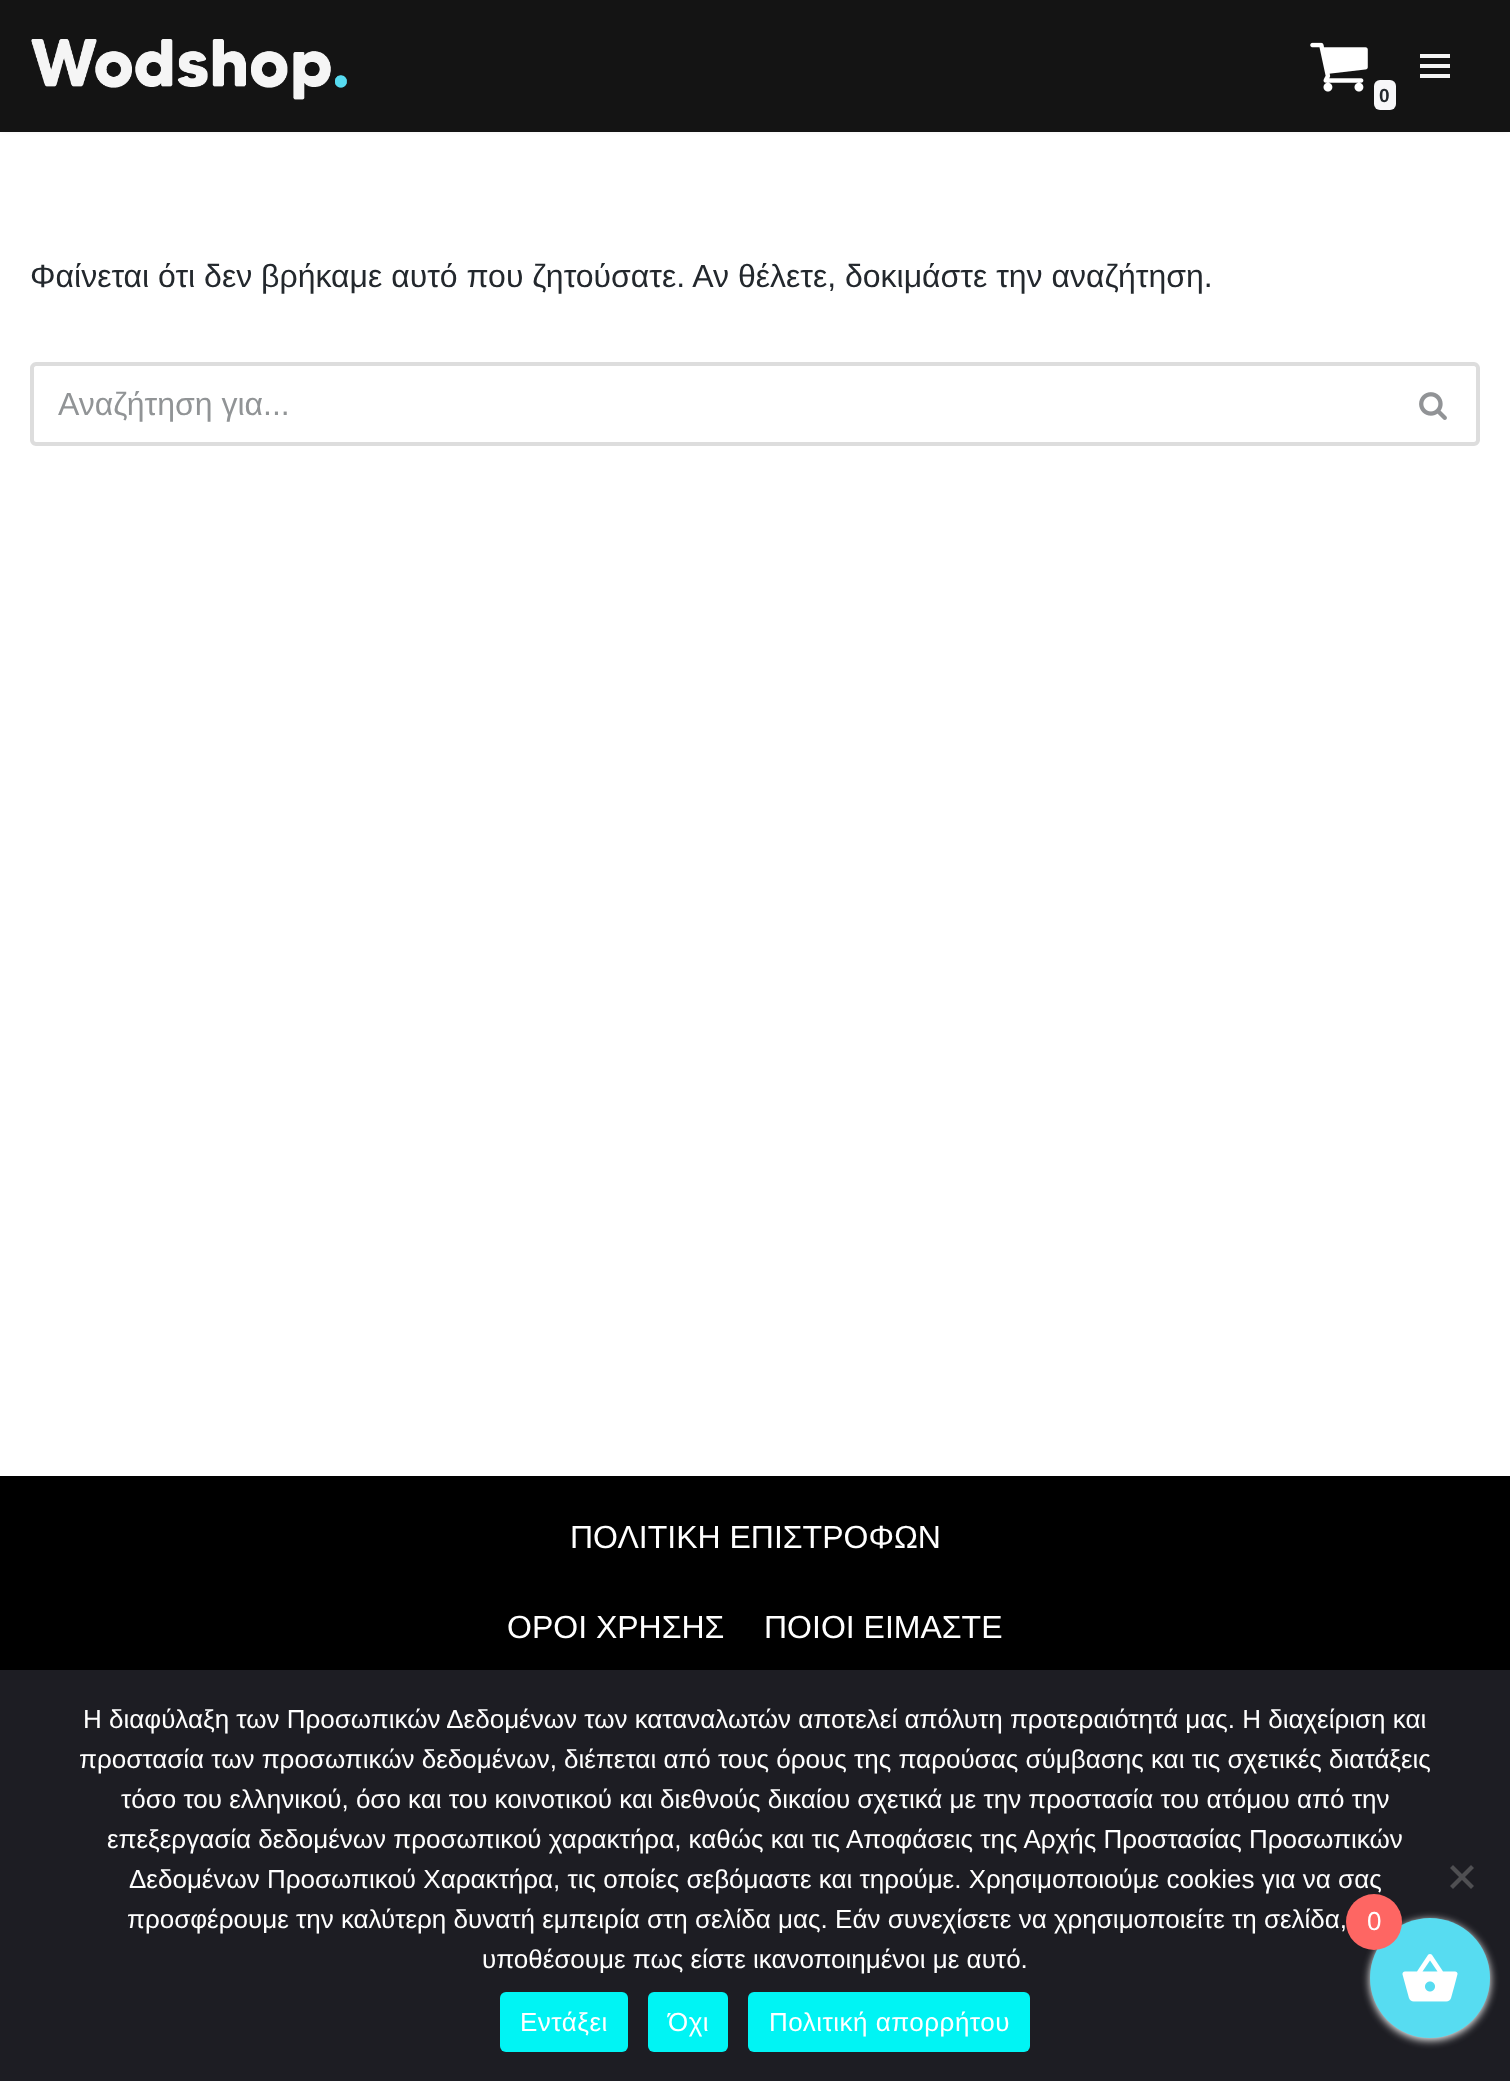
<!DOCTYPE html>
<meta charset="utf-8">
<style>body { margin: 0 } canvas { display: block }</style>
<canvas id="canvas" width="1510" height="2081"></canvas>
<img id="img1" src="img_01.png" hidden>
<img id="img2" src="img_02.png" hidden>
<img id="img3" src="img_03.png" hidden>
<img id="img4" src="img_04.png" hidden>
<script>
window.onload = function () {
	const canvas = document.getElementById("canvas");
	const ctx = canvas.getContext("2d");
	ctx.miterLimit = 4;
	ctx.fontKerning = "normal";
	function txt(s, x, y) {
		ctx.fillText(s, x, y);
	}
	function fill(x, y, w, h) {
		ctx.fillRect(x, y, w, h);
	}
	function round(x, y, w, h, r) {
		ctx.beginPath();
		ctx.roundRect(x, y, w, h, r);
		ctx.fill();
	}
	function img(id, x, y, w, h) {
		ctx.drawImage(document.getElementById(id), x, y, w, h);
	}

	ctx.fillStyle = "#FFFFFF";
	fill(0, 0, 1510, 2081);
	ctx.fillStyle = "rgba(0, 0, 0, 0.1)";
	ctx.filter = "blur(3px)";
	ctx.beginPath();
	ctx.rect(0, -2, 1510, 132);
	ctx.fill();
	ctx.filter = "none";
	ctx.fillStyle = "#141414";
	fill(0, 0, 1510, 132);
	img("img1", 31, 39, 316, 61);
	ctx.fillStyle = "#F5F5F5";
	fill(1420, 54, 30, 4);
	fill(1420, 64, 30, 4);
	fill(1420, 74, 30, 4);
	img("img2", 1310, 42, 58, 50);
	ctx.fillStyle = "#F7F7F9";
	round(1374, 80, 22, 30, 6);
	ctx.fillStyle = "#DDDDDD";
	ctx.beginPath();
	ctx.moveTo(36, 362);
	ctx.lineTo(1390, 362);
	ctx.lineTo(1390, 446);
	ctx.lineTo(36, 446);
	ctx.bezierCurveTo(33, 446, 30, 443, 30, 440);
	ctx.lineTo(30, 368);
	ctx.bezierCurveTo(30, 365, 33, 362, 36, 362);
	ctx.closePath();
	ctx.moveTo(36, 366);
	ctx.lineTo(1390, 366);
	ctx.lineTo(1390, 442);
	ctx.lineTo(36, 442);
	ctx.bezierCurveTo(35, 442, 34, 441, 34, 440);
	ctx.lineTo(34, 368);
	ctx.bezierCurveTo(34, 367, 35, 366, 36, 366);
	ctx.closePath();
	ctx.fill("evenodd");
	ctx.beginPath();
	ctx.moveTo(1390, 362);
	ctx.lineTo(1474, 362);
	ctx.bezierCurveTo(1477, 362, 1480, 365, 1480, 368);
	ctx.lineTo(1480, 440);
	ctx.bezierCurveTo(1480, 443, 1477, 446, 1474, 446);
	ctx.lineTo(1390, 446);
	ctx.closePath();
	ctx.moveTo(1390, 366);
	ctx.lineTo(1474, 366);
	ctx.bezierCurveTo(1475, 366, 1476, 367, 1476, 368);
	ctx.lineTo(1476, 440);
	ctx.bezierCurveTo(1476, 441, 1475, 442, 1474, 442);
	ctx.lineTo(1390, 442);
	ctx.closePath();
	ctx.fill("evenodd");
	img("img3", 1419, 392, 28, 28);
	ctx.fillStyle = "#000000";
	fill(0, 1476, 1510, 194);
	ctx.fillStyle = "#1D1D23";
	fill(0, 1670, 1510, 411);
	ctx.fillStyle = "#4F4F52";
	ctx.beginPath();
	ctx.moveTo(1471, 1865);
	ctx.lineTo(1474, 1868);
	ctx.lineTo(1453, 1889);
	ctx.lineTo(1450, 1886);
	ctx.closePath();
	ctx.fill();
	ctx.beginPath();
	ctx.moveTo(1450, 1868);
	ctx.lineTo(1453, 1865);
	ctx.lineTo(1474, 1886);
	ctx.lineTo(1471, 1889);
	ctx.closePath();
	ctx.fill();
	ctx.fillStyle = "#00F4F4";
	round(500, 1992, 128, 60, 6);
	round(648, 1992, 80, 60, 6);
	round(748, 1992, 282, 60, 6);
	ctx.fillStyle = "#FFFFFF";
	ctx.filter = "blur(4px)";
	ctx.beginPath();
	ctx.roundRect(1370, 1920, 120, 120, 60);
	ctx.fill();
	ctx.filter = "none";
	ctx.fillStyle = "#57DCF1";
	ctx.beginPath();
	ctx.arc(1430, 1978, 60, 0, Math.PI * 2);
	ctx.fill();
	ctx.fillStyle = "#FE6663";
	ctx.beginPath();
	ctx.arc(1374, 1922, 28, 0, Math.PI * 2);
	ctx.fill();
	img("img4", 1402, 1954, 56, 48);
	ctx.font = "bold 19px Liberation Sans";
	ctx.fillStyle = "#23282D";
	txt("0", 1379, 102);
	ctx.font = "32px Liberation Sans";
	txt("Φαίνεται ότι δεν βρήκαμε αυτό που ζητούσατε. Αν θέλετε, δοκιμάστε την αναζήτηση.", 30, 287);
	ctx.fillStyle = "#919496";
	txt("Αναζήτηση για...", 58, 415);
	ctx.fillStyle = "#FFFFFF";
	txt("ΠΟΛΙΤΙΚΗ ΕΠΙΣΤΡΟΦΩΝ", 570, 1548);
	txt("ΟΡΟΙ ΧΡΗΣΗΣ", 507, 1638);
	txt("ΠΟΙΟΙ ΕΙΜΑΣΤΕ", 764, 1638);
	ctx.font = "26px Liberation Sans";
	txt("Η διαφύλαξη των Προσωπικών Δεδομένων των καταναλωτών αποτελεί απόλυτη προτεραιότητά μας. Η διαχείριση και", 83, 1728);
	txt("προστασία των προσωπικών δεδομένων, διέπεται από τους όρους της παρούσας σύμβασης και τις σχετικές διατάξεις", 79, 1768);
	txt("τόσο του ελληνικού, όσο και του κοινοτικού και διεθνούς δικαίου σχετικά με την προστασία του ατόμου από την", 121, 1808);
	txt("επεξεργασία δεδομένων προσωπικού χαρακτήρα, καθώς και τις Αποφάσεις της Αρχής Προστασίας Προσωπικών", 107, 1848);
	txt("Δεδομένων Προσωπικού Χαρακτήρα, τις οποίες σεβόμαστε και τηρούμε. Χρησιμοποιούμε cookies για να σας", 129, 1888);
	txt("προσφέρουμε την καλύτερη δυνατή εμπειρία στη σελίδα μας. Εάν συνεχίσετε να χρησιμοποιείτε τη σελίδα,", 127, 1928);
	txt("υποθέσουμε πως είστε ικανοποιημένοι με αυτό.", 482, 1968);
	ctx.letterSpacing = "0.5px";
	txt("Εντάξει", 520, 2031);
	txt("Όχι", 668, 2031);
	txt("Πολιτική απορρήτου", 769, 2031);
	ctx.letterSpacing = "0px";
	txt("0", 1367, 1930);
};
</script>
